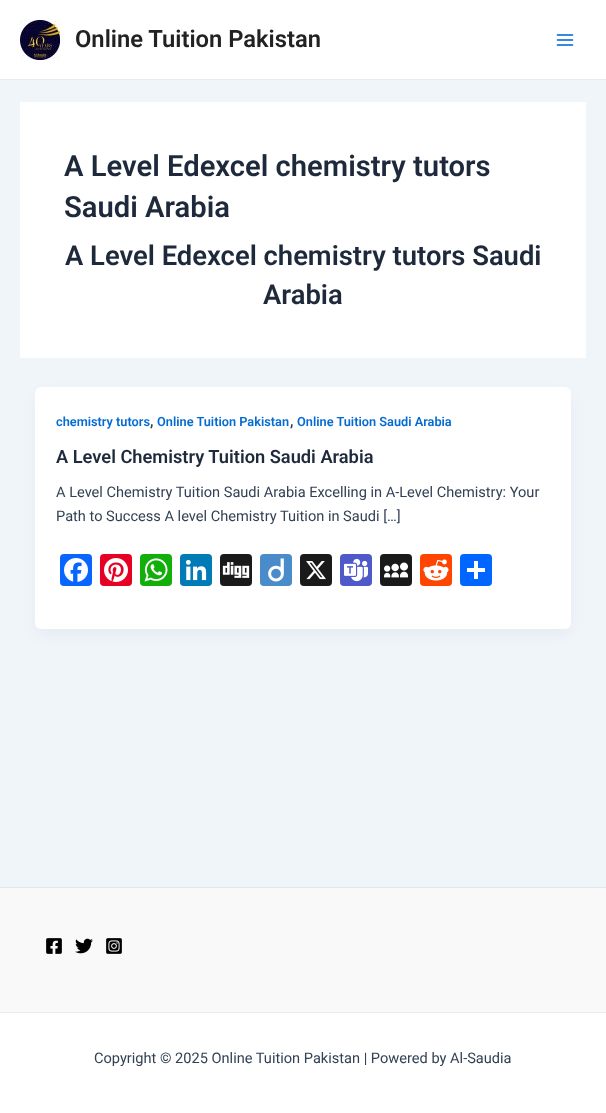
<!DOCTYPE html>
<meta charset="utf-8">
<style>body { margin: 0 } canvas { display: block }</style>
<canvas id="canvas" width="606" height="1113"></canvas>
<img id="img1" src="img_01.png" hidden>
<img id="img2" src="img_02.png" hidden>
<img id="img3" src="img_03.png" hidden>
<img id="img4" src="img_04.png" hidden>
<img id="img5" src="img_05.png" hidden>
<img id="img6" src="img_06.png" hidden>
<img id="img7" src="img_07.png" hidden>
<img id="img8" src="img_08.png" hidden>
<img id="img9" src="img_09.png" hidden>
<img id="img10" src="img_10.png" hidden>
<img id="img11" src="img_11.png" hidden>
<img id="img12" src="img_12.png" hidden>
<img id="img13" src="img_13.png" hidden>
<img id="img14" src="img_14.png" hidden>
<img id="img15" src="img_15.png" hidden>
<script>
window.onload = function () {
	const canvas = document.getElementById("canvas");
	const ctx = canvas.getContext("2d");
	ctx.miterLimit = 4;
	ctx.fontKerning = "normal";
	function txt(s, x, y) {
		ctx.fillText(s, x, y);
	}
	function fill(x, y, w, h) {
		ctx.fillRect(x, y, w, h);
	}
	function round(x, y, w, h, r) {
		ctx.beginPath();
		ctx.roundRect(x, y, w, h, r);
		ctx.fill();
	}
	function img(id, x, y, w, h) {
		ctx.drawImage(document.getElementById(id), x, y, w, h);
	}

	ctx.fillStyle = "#F0F5FA";
	fill(0, 0, 606, 1113);
	ctx.fillStyle = "#FFFFFF";
	fill(0, 0, 606, 79);
	ctx.fillStyle = "#EAEAEA";
	fill(0, 79, 606, 1);
	img("img1", 20, 20, 40, 40);
	img("img2", 556, 34, 18, 12);
	ctx.fillStyle = "#FFFFFF";
	fill(20, 102, 566, 256);
	ctx.fillStyle = "rgba(16, 24, 40, 0.05)";
	ctx.filter = "blur(7.5px)";
	ctx.beginPath();
	ctx.roundRect(37, 395, 532, 238, 4);
	ctx.fill();
	ctx.filter = "none";
	ctx.fillStyle = "#FFFFFF";
	round(35, 387, 536, 242, 6);
	ctx.fillStyle = "#0866FF";
	round(60, 554, 32, 32, 4);
	img("img3", 64, 558, 24, 24);
	ctx.fillStyle = "#E60023";
	round(100, 554, 32, 32, 4);
	img("img4", 104, 558, 24, 24);
	ctx.fillStyle = "#12AF0A";
	round(140, 554, 32, 32, 4);
	img("img5", 144, 558, 24, 24);
	ctx.fillStyle = "#007BB5";
	round(180, 554, 32, 32, 4);
	img("img6", 185, 559, 22, 22);
	ctx.fillStyle = "#1A1A1A";
	round(220, 554, 32, 32, 4);
	img("img7", 222, 562, 28, 16);
	ctx.fillStyle = "#4A8BCA";
	round(260, 554, 32, 32, 4);
	img("img8", 268, 558, 16, 24);
	ctx.fillStyle = "#1A1A1A";
	round(300, 554, 32, 32, 4);
	img("img9", 306, 561, 20, 19);
	ctx.fillStyle = "#5059C9";
	round(340, 554, 32, 32, 4);
	img("img10", 344, 558, 24, 24);
	ctx.fillStyle = "#1A1A1A";
	round(380, 554, 32, 32, 4);
	img("img11", 384, 562, 24, 16);
	ctx.fillStyle = "#FF4500";
	round(420, 554, 32, 32, 4);
	img("img12", 423, 559, 26, 22);
	ctx.fillStyle = "#0166FF";
	round(460, 554, 32, 32, 4);
	ctx.fillStyle = "#FFFFFF";
	fill(474, 561, 4, 18);
	fill(467, 568, 18, 4);
	ctx.fillStyle = "#F9F9F9";
	fill(0, 888, 606, 124);
	ctx.fillStyle = "#E6E6E6";
	fill(0, 887, 606, 1);
	img("img13", 46, 938, 16, 16);
	img("img14", 75, 938, 18, 16);
	img("img15", 106, 938, 16, 16);
	ctx.fillStyle = "#FFFFFF";
	fill(0, 1013, 606, 100);
	ctx.fillStyle = "#EAEAEA";
	fill(0, 1012, 606, 1);
	ctx.font = "600 23.75px Roboto";
	ctx.fillStyle = "#222222";
	txt("Online Tuition Pakistan", 75, 47);
	ctx.font = "600 29.2px Roboto";
	ctx.fillStyle = "#1E293B";
	txt("A Level Edexcel chemistry tutors", 64, 176);
	txt("Saudi Arabia", 64, 217);
	ctx.font = "600 27.4px Roboto";
	txt("A Level Edexcel chemistry tutors Saudi", 65, 265);
	txt("Arabia", 263, 304);
	ctx.font = "600 12.75px Roboto";
	ctx.fillStyle = "#046BD2";
	txt("chemistry tutors", 56, 426);
	ctx.font = "600 14.6px Roboto";
	ctx.fillStyle = "#334155";
	txt(",", 150, 426);
	ctx.font = "600 12.75px Roboto";
	ctx.fillStyle = "#046BD2";
	txt("Online Tuition Pakistan", 157, 426);
	ctx.font = "600 14.6px Roboto";
	ctx.fillStyle = "#334155";
	txt(",", 290, 426);
	ctx.font = "600 12.75px Roboto";
	ctx.fillStyle = "#046BD2";
	txt("Online Tuition Saudi Arabia", 297, 426);
	ctx.font = "600 18.25px Roboto";
	ctx.fillStyle = "#1E293B";
	txt("A Level Chemistry Tuition Saudi Arabia", 56, 463);
	ctx.font = "14.6px Roboto";
	ctx.fillStyle = "#334155";
	txt("A Level Chemistry Tuition Saudi Arabia Excelling in A-Level Chemistry: Your", 56, 497);
	txt("Path to Success A level Chemistry Tuition in Saudi […]", 56, 521);
	txt("Copyright © 2025 Online Tuition Pakistan | Powered by Al-Saudia", 94, 1063);
};
</script>
